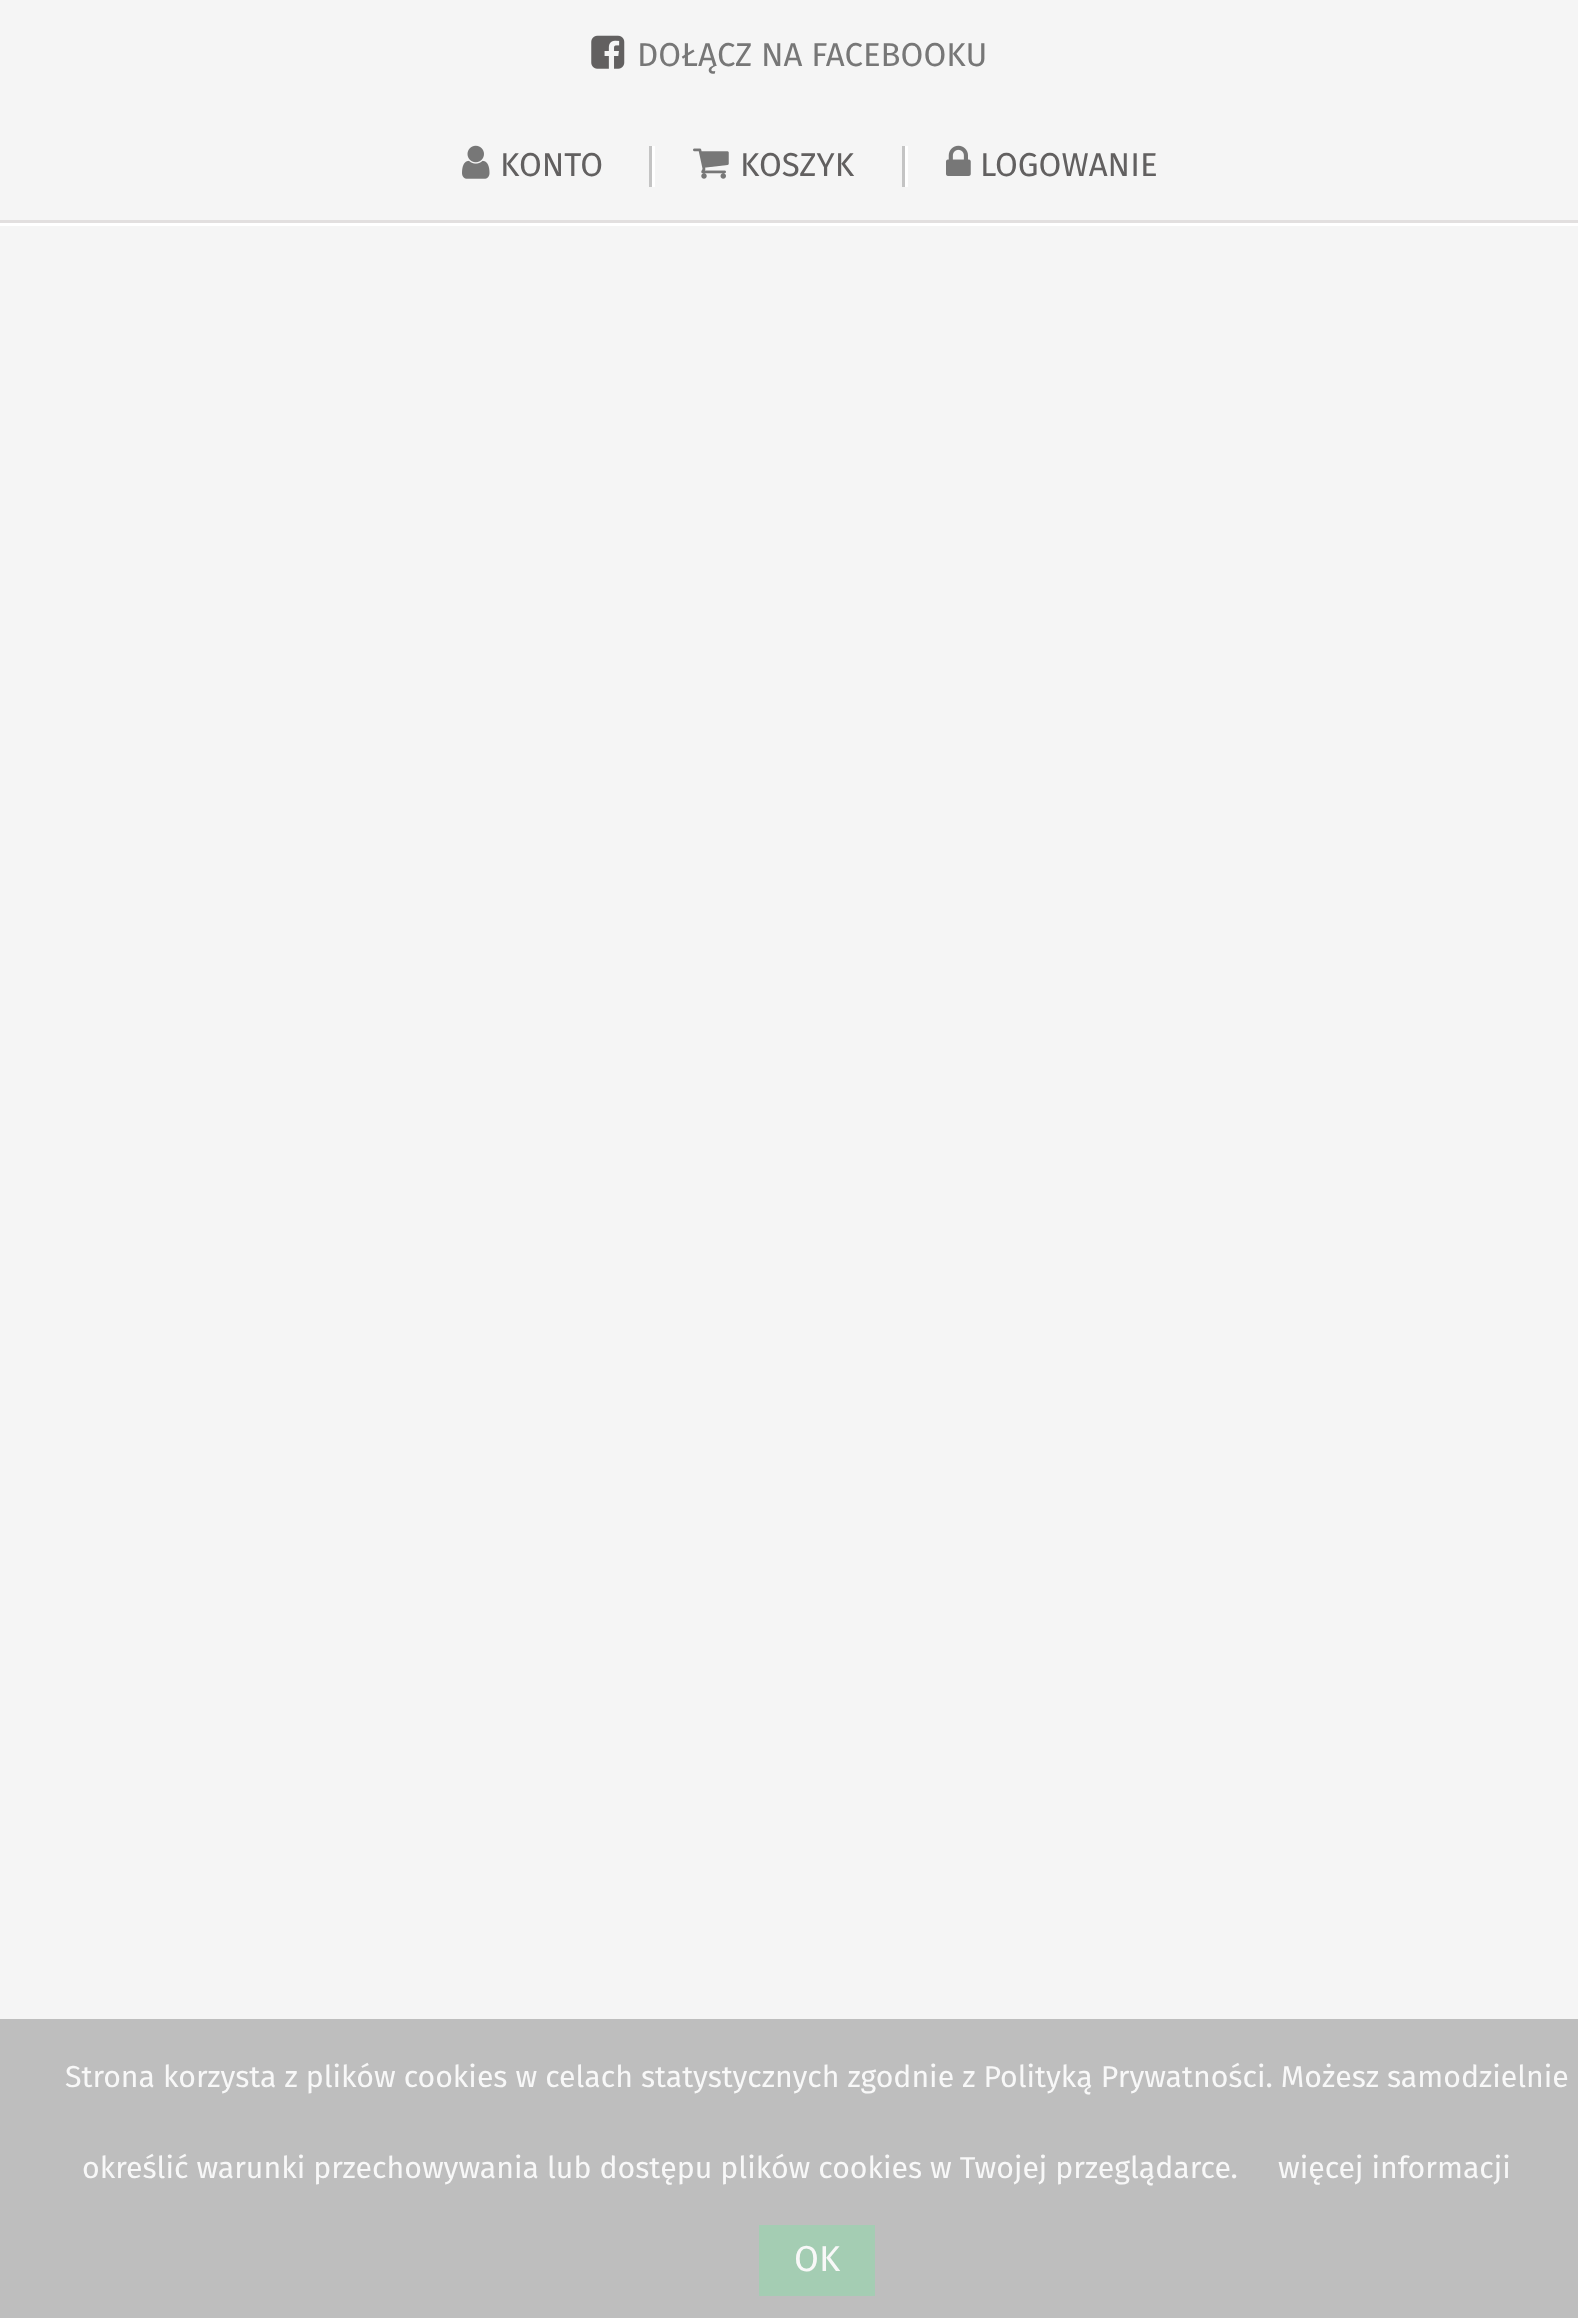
<!DOCTYPE html>
<meta charset="utf-8">
<style>body { margin: 0 } canvas { display: block }</style>
<canvas id="canvas" width="1578" height="2318"></canvas>
<img id="img1" src="img_01.png" hidden>
<img id="img2" src="img_02.png" hidden>
<img id="img3" src="img_03.png" hidden>
<img id="img4" src="img_04.png" hidden>
<script>
window.onload = function () {
	const canvas = document.getElementById("canvas");
	const ctx = canvas.getContext("2d");
	ctx.miterLimit = 4;
	ctx.fontKerning = "normal";
	function txt(s, x, y) {
		ctx.fillText(s, x, y);
	}
	function fill(x, y, w, h) {
		ctx.fillRect(x, y, w, h);
	}
	function img(id, x, y, w, h) {
		ctx.drawImage(document.getElementById(id), x, y, w, h);
	}

	ctx.fillStyle = "#F5F5F5";
	fill(0, 0, 1578, 2318);
	ctx.fillStyle = "#FFFFFF";
	ctx.beginPath();
	ctx.moveTo(0, 223);
	ctx.lineTo(0, 226);
	ctx.lineTo(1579, 226);
	ctx.lineTo(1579, 3);
	ctx.lineTo(1578, 3);
	ctx.lineTo(1578, 223);
	ctx.closePath();
	ctx.fill();
	ctx.fillStyle = "#E2DFDF";
	fill(0, 220, 1578, 3);
	img("img1", 591, 35, 34, 34);
	img("img2", 462, 145, 28, 34);
	ctx.fillStyle = "#FFFFFF";
	fill(652, 146, 3, 41);
	ctx.fillStyle = "#C4C4C4";
	fill(649, 146, 3, 41);
	img("img3", 693, 148, 36, 31);
	ctx.fillStyle = "#FFFFFF";
	fill(905, 146, 3, 41);
	ctx.fillStyle = "#C4C4C4";
	fill(902, 146, 3, 41);
	img("img4", 946, 145, 25, 31);
	ctx.fillStyle = "#BEBEBE";
	fill(0, 2019, 1578, 299);
	ctx.fillStyle = "#A4CDB3";
	fill(759, 2225, 116, 71);
	ctx.font = "33px Fira Sans";
	ctx.fillStyle = "#777777";
	txt("DOŁĄCZ NA FACEBOOKU", 637, 66);
	ctx.fillStyle = "#626060";
	txt("KONTO", 500, 176);
	txt("KOSZYK", 740, 176);
	txt("LOGOWANIE", 980, 176);
	ctx.font = "30.25px Fira Sans";
	ctx.fillStyle = "#F8F8F8";
	txt("Strona korzysta z plików cookies w celach statystycznych zgodnie z Polityką Prywatności. Możesz samodzielnie", 65, 2087);
	txt("określić warunki przechowywania lub dostępu plików cookies w Twojej przeglądarce.", 82, 2178);
	txt("więcej informacji", 1278, 2178);
	ctx.font = "36px Fira Sans";
	txt("OK", 794, 2271);
};
</script>
